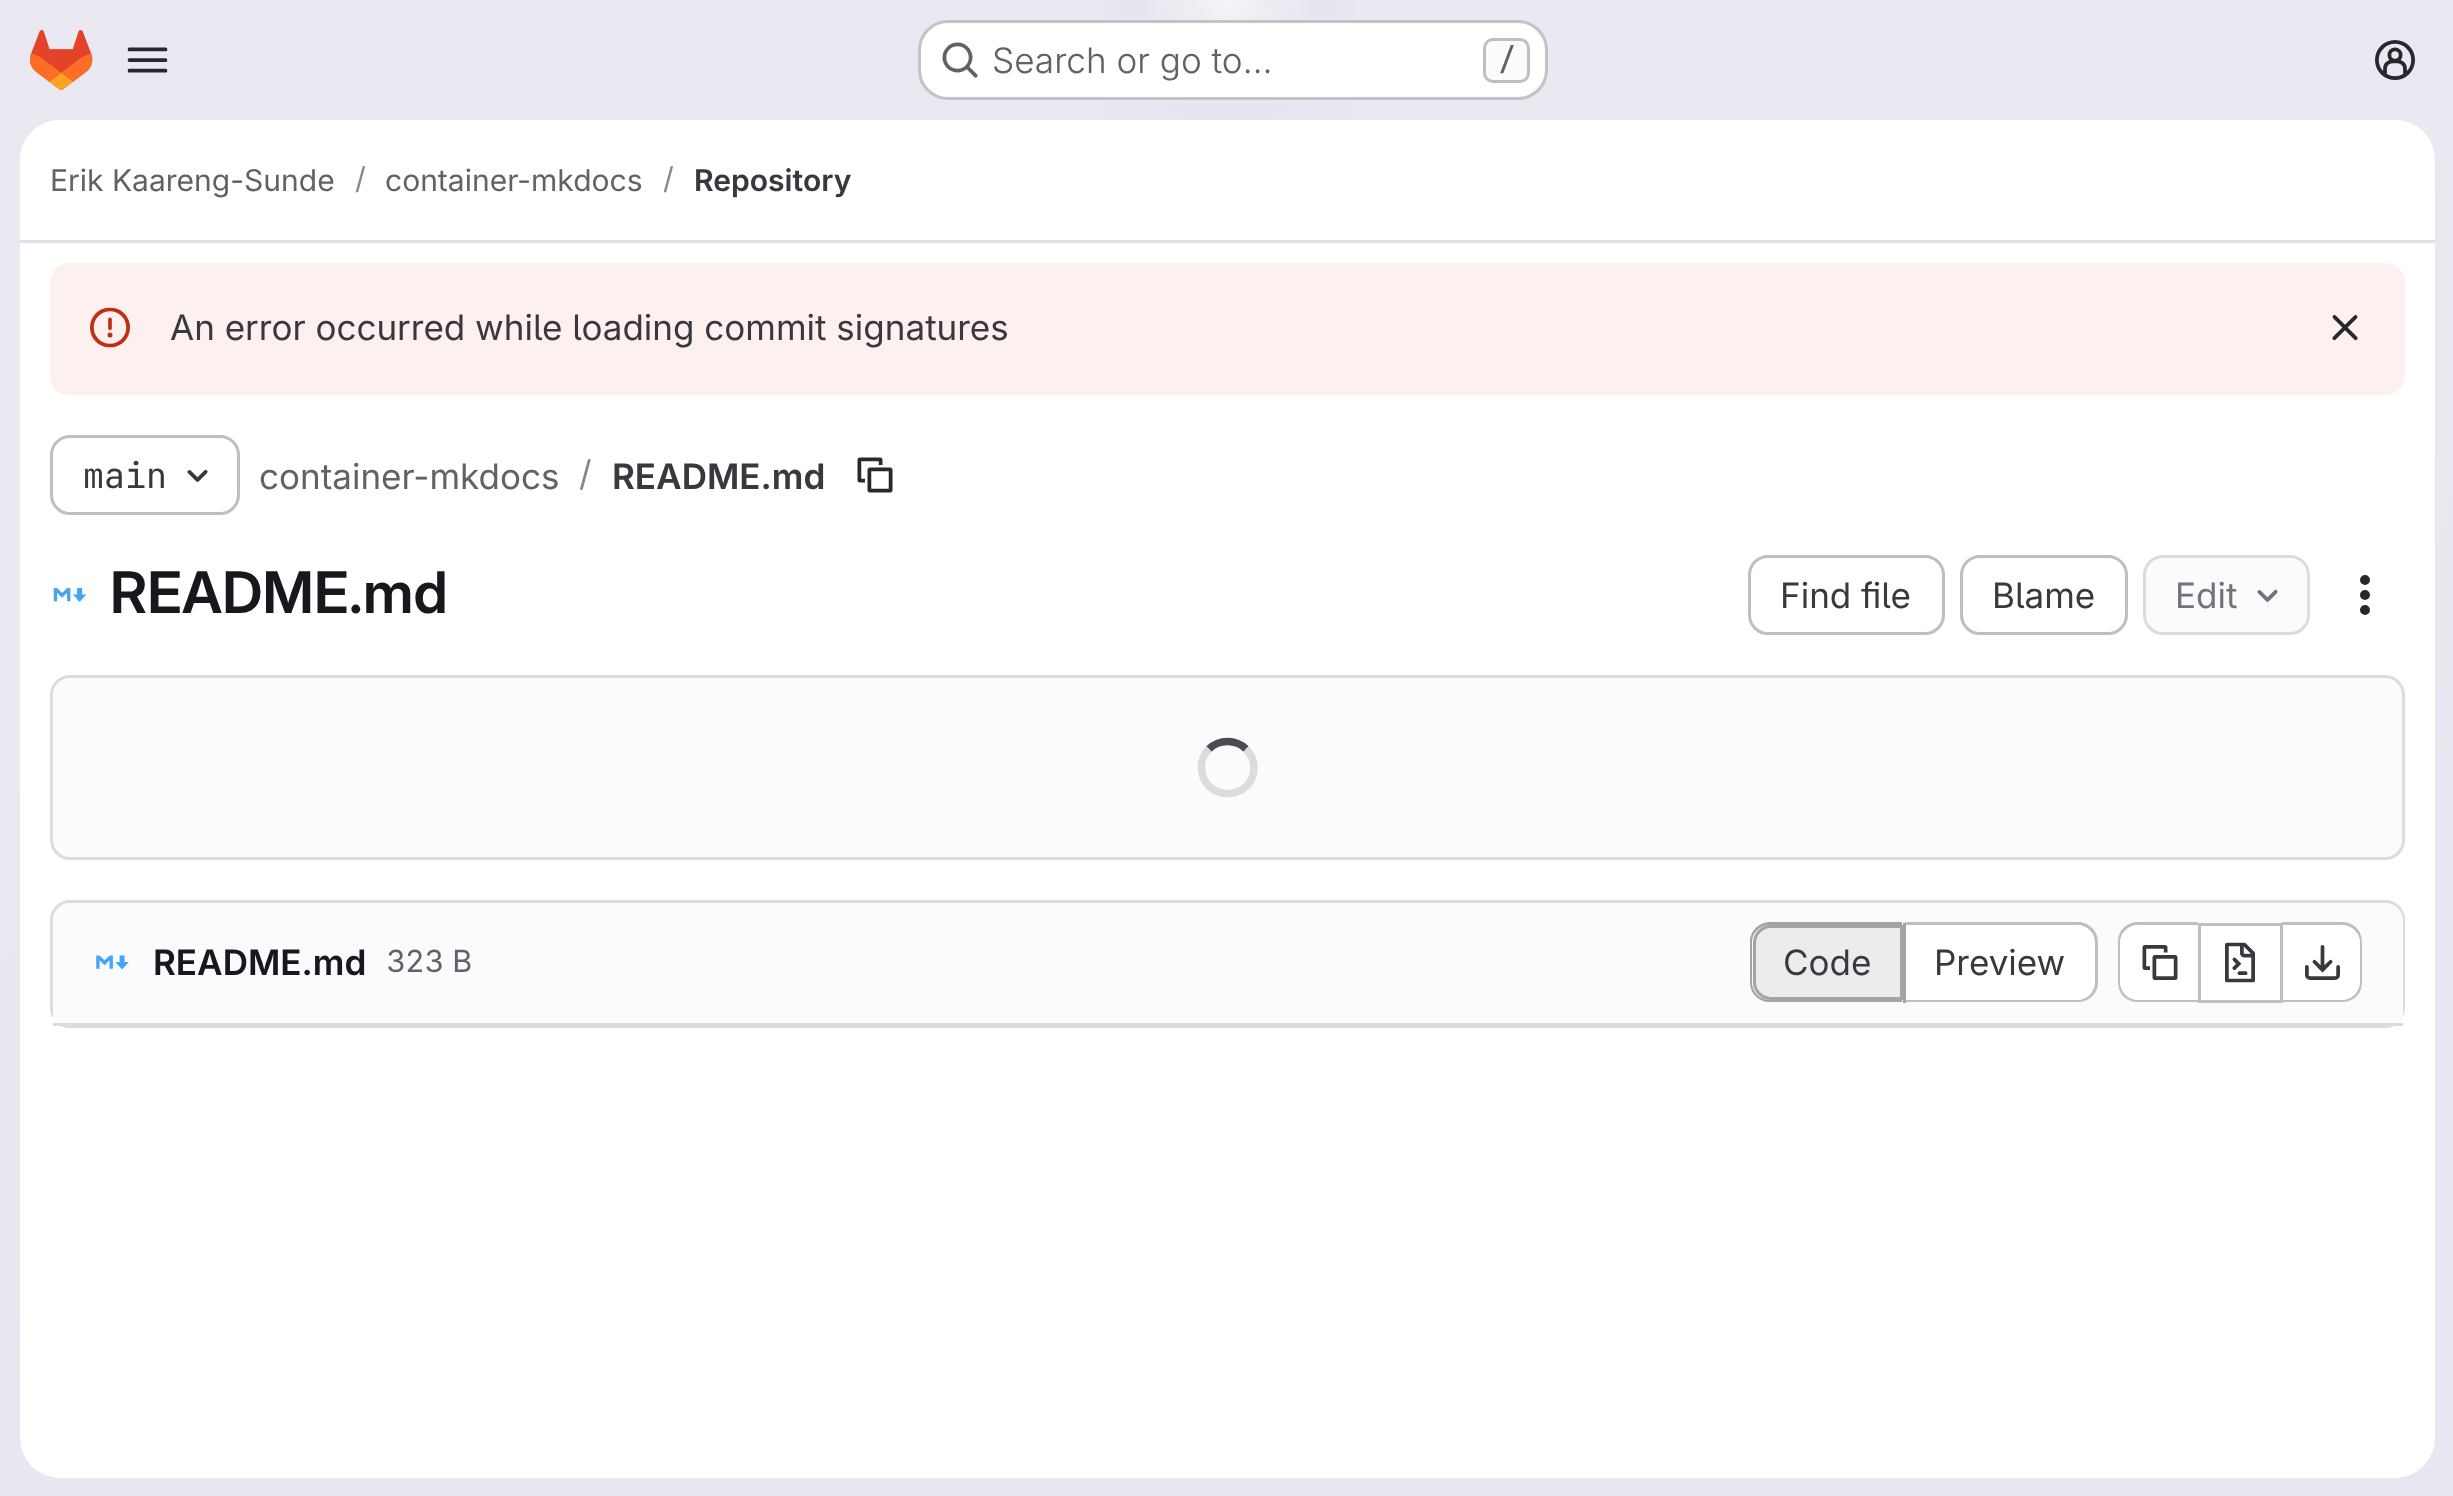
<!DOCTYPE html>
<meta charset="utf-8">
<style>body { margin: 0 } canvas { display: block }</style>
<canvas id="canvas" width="2453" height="1496"></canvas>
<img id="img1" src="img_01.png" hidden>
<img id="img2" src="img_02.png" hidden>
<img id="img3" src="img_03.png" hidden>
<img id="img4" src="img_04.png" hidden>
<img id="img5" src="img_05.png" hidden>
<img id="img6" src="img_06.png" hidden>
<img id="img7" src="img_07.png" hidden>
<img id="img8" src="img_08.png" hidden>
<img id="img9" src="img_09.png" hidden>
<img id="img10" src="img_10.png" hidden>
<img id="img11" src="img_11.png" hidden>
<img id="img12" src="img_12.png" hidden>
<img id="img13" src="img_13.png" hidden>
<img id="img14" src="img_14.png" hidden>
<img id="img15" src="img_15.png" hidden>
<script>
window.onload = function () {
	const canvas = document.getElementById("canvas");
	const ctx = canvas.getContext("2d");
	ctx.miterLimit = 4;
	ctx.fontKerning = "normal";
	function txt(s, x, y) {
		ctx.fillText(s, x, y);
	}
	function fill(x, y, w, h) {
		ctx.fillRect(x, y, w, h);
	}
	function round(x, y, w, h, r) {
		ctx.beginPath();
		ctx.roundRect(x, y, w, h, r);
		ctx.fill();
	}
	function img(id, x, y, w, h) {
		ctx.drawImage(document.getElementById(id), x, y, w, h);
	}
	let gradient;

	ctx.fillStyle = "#FFFFFF";
	fill(0, 0, 2453, 1496);
	gradient = ctx.createLinearGradient(1393, 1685, 1062, -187);
	gradient.addColorStop(0, "#E8E6F0");
	gradient.addColorStop(0.7, "#EAE9F2");
	ctx.fillStyle = gradient;
	fill(0, 0, 2453, 1496);
	gradient = ctx.createRadialGradient(1228, 0, 0, 1228, 0, 1228);
	gradient.addColorStop(0, "#E4E2ED");
	gradient.addColorStop(0.14, "rgba(228, 226, 237, 0)");
	ctx.fillStyle = gradient;
	ctx.beginPath();
	ctx.rect(1103, 0, 250, 120);
	ctx.save();
	ctx.clip();
	ctx.scale(1, 1498 / 1228);
	ctx.fillRect(0, 0, 2453, 1227);
	ctx.restore();
	gradient = ctx.createRadialGradient(1228, 0, 0, 1228, 0, 1228);
	gradient.addColorStop(0, "#E4E2EC");
	gradient.addColorStop(0.1, "rgba(228, 226, 236, 0)");
	ctx.fillStyle = gradient;
	ctx.beginPath();
	ctx.rect(1177, 4, 102, 57);
	ctx.save();
	ctx.clip();
	ctx.scale(1, 1498 / 1228);
	ctx.fillRect(0, 0, 2453, 1227);
	ctx.restore();
	gradient = ctx.createRadialGradient(1228, 0, 0, 1228, 0, 1936);
	gradient.addColorStop(0, "rgba(255, 255, 255, 0.6)");
	gradient.addColorStop(0.05, "rgba(255, 255, 255, 0)");
	ctx.fillStyle = gradient;
	fill(1147, 0, 162, 20);
	img("img1", 30, 30, 63, 60);
	img("img2", 127, 47, 41, 26);
	ctx.fillStyle = "#FFFFFF";
	round(918, 20, 630, 80, 30);
	ctx.beginPath();
	ctx.roundRect(919.5, 21.5, 627, 77, 28.5);
	ctx.strokeStyle = "rgba(5, 5, 6, 0.24)";
	ctx.lineWidth = 3;
	ctx.stroke();
	img("img3", 942, 42, 36, 36);
	ctx.fillStyle = "#FBFAFD";
	ctx.beginPath();
	ctx.roundRect(1484.5, 39.5, 44, 42, 8.5);
	ctx.fill();
	ctx.strokeStyle = "#BFBFC3";
	ctx.stroke();
	img("img4", 2375, 40, 40, 40);
	ctx.fillStyle = "#FFFFFF";
	round(20, 120, 2415, 1358, 40);
	ctx.beginPath();
	ctx.roundRect(20, 120, 2415, 123, [40, 40, 0, 0]);
	ctx.fill();
	ctx.fillStyle = "#E1DFEC";
	fill(20, 240, 2415, 3);
	ctx.fillStyle = "#FCF1EF";
	round(50, 263, 2355, 132, 20);
	img("img5", 90, 307, 40, 41);
	img("img6", 2332, 315, 26, 26);
	ctx.beginPath();
	ctx.roundRect(51.5, 436.5, 187, 77, 18.5);
	ctx.stroke();
	img("img7", 187, 469, 21, 13);
	img("img8", 857, 457, 36, 36);
	img("img9", 53, 588, 34, 14);
	ctx.beginPath();
	ctx.roundRect(1749.5, 556.5, 194, 77, 18.5);
	ctx.stroke();
	ctx.beginPath();
	ctx.roundRect(1961.5, 556.5, 165, 77, 18.5);
	ctx.stroke();
	ctx.fillStyle = "#FBFAFD";
	ctx.beginPath();
	ctx.roundRect(2144.5, 556.5, 164, 77, 18.5);
	ctx.fill();
	ctx.strokeStyle = "#DCDCDE";
	ctx.stroke();
	img("img10", 2257, 589, 21, 13);
	img("img11", 2360, 575, 10, 40);
	ctx.beginPath();
	ctx.roundRect(51.5, 676.5, 2352, 182, 18.5);
	ctx.fill();
	ctx.stroke();
	ctx.beginPath();
	ctx.moveTo(1209, 749);
	ctx.bezierCurveTo(1219, 739, 1236, 739, 1246, 749);
	ctx.strokeStyle = "#4C4B51";
	ctx.lineWidth = 7.5;
	ctx.stroke();
	ctx.beginPath();
	ctx.moveTo(1246, 749);
	ctx.bezierCurveTo(1251, 754, 1254, 760.5, 1254, 767.5);
	ctx.bezierCurveTo(1254, 799, 1208, 803.5, 1202, 772.5);
	ctx.bezierCurveTo(1200, 764, 1203, 755, 1209, 749);
	ctx.strokeStyle = "#DCDCDE";
	ctx.stroke();
	ctx.beginPath();
	ctx.roundRect(51.5, 901.5, 2352, 125, 18.5);
	ctx.lineWidth = 3;
	ctx.stroke();
	ctx.beginPath();
	ctx.roundRect(53, 903, 2350, 122, [18, 18, 0, 0]);
	ctx.fill();
	ctx.fillStyle = "#DCDCDE";
	fill(53, 1023, 2350, 3);
	img("img12", 96, 955, 33, 15);
	ctx.fillStyle = "#ECECEF";
	ctx.beginPath();
	ctx.roundRect(1754.5, 926.5, 147, 72, [16.5, 0, 0, 16.5]);
	ctx.fill();
	ctx.strokeStyle = "#A4A3A8";
	ctx.stroke();
	ctx.fillStyle = "#A4A3A8";
	ctx.beginPath();
	ctx.moveTo(1770, 922);
	ctx.lineTo(1902, 922);
	ctx.lineTo(1902, 1002);
	ctx.lineTo(1770, 1002);
	ctx.bezierCurveTo(1759, 1002, 1750, 994, 1750, 982);
	ctx.lineTo(1750, 942);
	ctx.bezierCurveTo(1750, 931, 1759, 922, 1770, 922);
	ctx.closePath();
	ctx.moveTo(1770, 925);
	ctx.lineTo(1902, 925);
	ctx.lineTo(1902, 1000);
	ctx.lineTo(1770, 1000);
	ctx.bezierCurveTo(1760, 1000, 1752, 992, 1752, 982);
	ctx.lineTo(1752, 942);
	ctx.bezierCurveTo(1752, 933, 1760, 925, 1770, 925);
	ctx.closePath();
	ctx.fill("evenodd");
	ctx.fillStyle = "#FFFFFF";
	ctx.beginPath();
	ctx.roundRect(1905, 925, 190, 75, [0, 18, 18, 0]);
	ctx.fill();
	ctx.fillStyle = "#BFBFC3";
	ctx.beginPath();
	ctx.moveTo(1905, 922);
	ctx.lineTo(2078, 922);
	ctx.bezierCurveTo(2089, 922, 2098, 931, 2098, 942);
	ctx.lineTo(2098, 982);
	ctx.bezierCurveTo(2098, 994, 2089, 1002, 2078, 1002);
	ctx.lineTo(1905, 1002);
	ctx.closePath();
	ctx.moveTo(1905, 925);
	ctx.lineTo(2078, 925);
	ctx.bezierCurveTo(2087, 925, 2095, 933, 2095, 942);
	ctx.lineTo(2095, 982);
	ctx.bezierCurveTo(2095, 992, 2087, 1000, 2078, 1000);
	ctx.lineTo(1905, 1000);
	ctx.closePath();
	ctx.fill("evenodd");
	ctx.fillStyle = "#A4A3A8";
	fill(1903, 923, 3, 80);
	ctx.fillStyle = "#FFFFFF";
	ctx.beginPath();
	ctx.roundRect(2120, 925, 78, 75, [18, 0, 0, 18]);
	ctx.fill();
	ctx.fillStyle = "#BFBFC3";
	ctx.beginPath();
	ctx.moveTo(2138, 922);
	ctx.lineTo(2198, 922);
	ctx.lineTo(2198, 1002);
	ctx.lineTo(2138, 1002);
	ctx.bezierCurveTo(2126, 1002, 2118, 994, 2118, 982);
	ctx.lineTo(2118, 942);
	ctx.bezierCurveTo(2118, 931, 2126, 922, 2138, 922);
	ctx.closePath();
	ctx.moveTo(2138, 925);
	ctx.lineTo(2198, 925);
	ctx.lineTo(2198, 1000);
	ctx.lineTo(2138, 1000);
	ctx.bezierCurveTo(2128, 1000, 2120, 992, 2120, 982);
	ctx.lineTo(2120, 942);
	ctx.bezierCurveTo(2120, 933, 2128, 925, 2138, 925);
	ctx.closePath();
	ctx.fill("evenodd");
	img("img13", 2142, 945, 36, 35);
	ctx.fillStyle = "#FFFFFF";
	fill(2201, 926, 79, 74);
	ctx.fillStyle = "#BFBFC3";
	fill(2200, 923, 80, 3);
	fill(2200, 1000, 80, 3);
	fill(2198, 923, 3, 80);
	img("img14", 2225, 942, 30, 41);
	ctx.fillStyle = "#FFFFFF";
	ctx.beginPath();
	ctx.roundRect(2283, 925, 77, 75, [0, 18, 18, 0]);
	ctx.fill();
	ctx.fillStyle = "#BFBFC3";
	ctx.beginPath();
	ctx.moveTo(2282, 922);
	ctx.lineTo(2342, 922);
	ctx.bezierCurveTo(2354, 922, 2362, 931, 2362, 942);
	ctx.lineTo(2362, 982);
	ctx.bezierCurveTo(2362, 994, 2354, 1002, 2342, 1002);
	ctx.lineTo(2282, 1002);
	ctx.closePath();
	ctx.moveTo(2282, 925);
	ctx.lineTo(2342, 925);
	ctx.bezierCurveTo(2352, 925, 2360, 933, 2360, 942);
	ctx.lineTo(2360, 982);
	ctx.bezierCurveTo(2360, 992, 2352, 1000, 2342, 1000);
	ctx.lineTo(2282, 1000);
	ctx.closePath();
	ctx.fill("evenodd");
	fill(2280, 923, 3, 80);
	img("img15", 2305, 945, 35, 35);
	ctx.font = "300 35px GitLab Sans";
	ctx.fillStyle = "#626168";
	txt("Search or go to…", 992, 73);
	ctx.font = "500 30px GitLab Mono";
	txt("/", 1498, 70);
	ctx.font = "30px GitLab Sans";
	txt("Erik Kaareng-Sunde", 50, 191);
	ctx.fillStyle = "#89888D";
	txt("/", 355, 189);
	ctx.fillStyle = "#626168";
	txt("container-mkdocs", 385, 191);
	ctx.fillStyle = "#89888D";
	txt("/", 663, 189);
	ctx.font = "600 30px GitLab Sans";
	ctx.fillStyle = "#3A383F";
	txt("Repository", 694, 191);
	ctx.font = "35px GitLab Sans";
	txt("An error occurred while loading commit signatures", 170, 340);
	ctx.font = "35px GitLab Mono";
	txt("main", 83, 488);
	ctx.font = "35px GitLab Sans";
	ctx.fillStyle = "#626168";
	txt("container-mkdocs", 259, 489);
	ctx.fillStyle = "#89888D";
	txt("/", 579, 486);
	ctx.font = "600 35px GitLab Sans";
	ctx.fillStyle = "#3A383F";
	txt("README.md", 612, 489);
	ctx.font = "600 57.5px 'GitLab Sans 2'";
	ctx.fillStyle = "#18171D";
	txt("README.md", 110, 613);
	ctx.font = "35px GitLab Sans";
	ctx.fillStyle = "#3A383F";
	txt("Find file", 1780, 608);
	txt("Blame", 1992, 608);
	ctx.fillStyle = "#737278";
	txt("Edit", 2175, 608);
	ctx.font = "600 35px GitLab Sans";
	ctx.fillStyle = "#18171D";
	txt("README.md", 153, 975);
	ctx.font = "30.5px GitLab Sans";
	ctx.fillStyle = "#626168";
	txt("323 B", 386, 972);
	ctx.font = "35px GitLab Sans";
	ctx.fillStyle = "#3A383F";
	txt("Code", 1783, 975);
	txt("Preview", 1934, 975);
};
</script>
